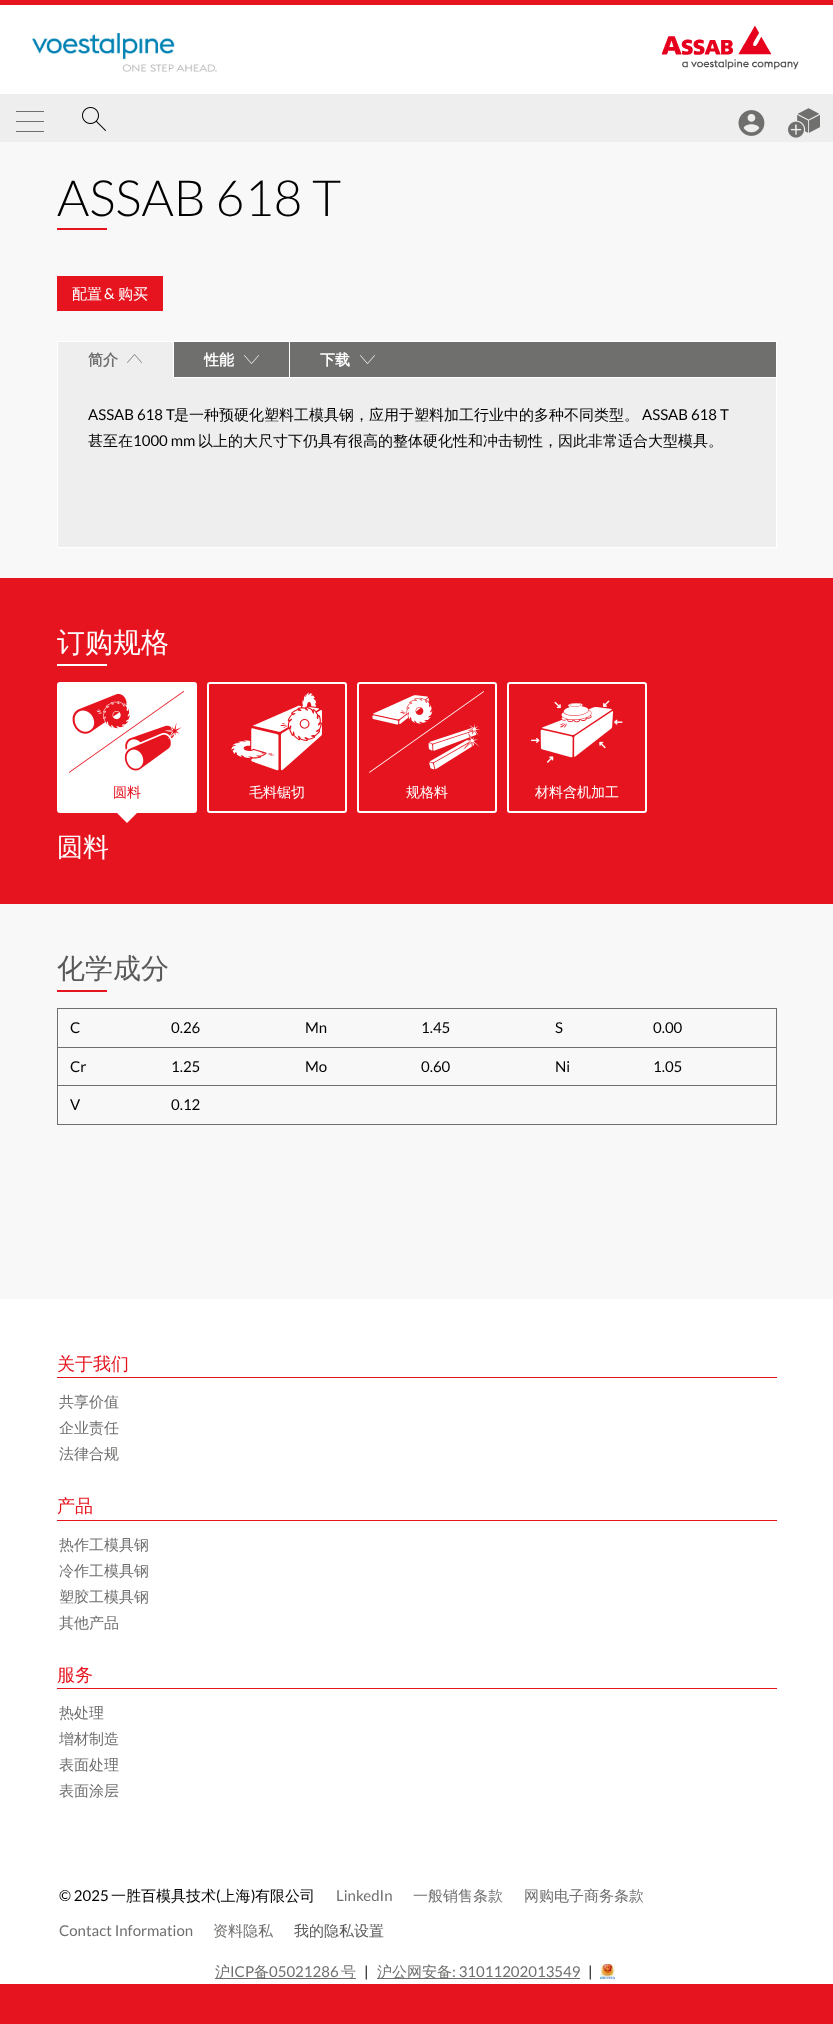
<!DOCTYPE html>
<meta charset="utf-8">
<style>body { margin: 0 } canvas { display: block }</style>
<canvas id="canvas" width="833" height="2024"></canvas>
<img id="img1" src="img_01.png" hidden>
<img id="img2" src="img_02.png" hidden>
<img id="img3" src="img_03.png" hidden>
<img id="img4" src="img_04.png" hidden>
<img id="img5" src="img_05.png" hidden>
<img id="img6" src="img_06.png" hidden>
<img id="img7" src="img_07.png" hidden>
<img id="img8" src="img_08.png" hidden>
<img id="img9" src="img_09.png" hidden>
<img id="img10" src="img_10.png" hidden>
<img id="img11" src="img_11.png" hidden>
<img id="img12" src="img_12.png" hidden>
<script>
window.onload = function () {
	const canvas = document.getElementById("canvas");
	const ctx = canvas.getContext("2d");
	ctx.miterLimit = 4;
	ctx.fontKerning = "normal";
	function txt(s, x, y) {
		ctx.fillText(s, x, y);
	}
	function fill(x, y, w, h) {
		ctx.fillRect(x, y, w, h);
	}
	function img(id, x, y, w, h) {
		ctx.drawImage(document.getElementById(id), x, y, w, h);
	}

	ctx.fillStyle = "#F8F8F8";
	fill(0, 0, 833, 2024);
	ctx.fillStyle = "#FFFFFF";
	fill(0, 5, 833, 89);
	ctx.fillStyle = "#E6141E";
	fill(0, 0, 833, 5);
	img("img1", 32, 33, 185, 39);
	img("img2", 661, 25, 138, 45);
	ctx.fillStyle = "#EEEEEE";
	fill(0, 94, 833, 48);
	ctx.fillStyle = "#6F6F6E";
	fill(16, 111, 28, 1);
	fill(16, 121, 28, 1);
	fill(16, 131, 28, 1);
	img("img3", 82, 107, 24, 24);
	img("img4", 738, 110, 27, 26);
	img("img5", 788, 108, 32, 30);
	ctx.fillStyle = "#E6141E";
	fill(57, 228, 50, 2);
	fill(57, 276, 106, 35);
	ctx.fillStyle = "#EEEEEE";
	fill(58, 378, 718, 169);
	ctx.strokeStyle = "#FFFFFF";
	ctx.strokeRect(57.5, 341.5, 719, 206);
	ctx.fillStyle = "#6F6F6E";
	fill(174, 342, 602, 35);
	ctx.fillStyle = "#FFFFFF";
	fill(174, 377, 602, 1);
	ctx.fillStyle = "#EEEEEE";
	fill(58, 342, 115, 36);
	ctx.fillStyle = "#FFFFFF";
	fill(173, 342, 1, 36);
	img("img6", 127, 354, 15, 9);
	fill(289, 342, 1, 36);
	img("img7", 244, 355, 15, 9);
	img("img7", 360, 355, 15, 9);
	ctx.fillStyle = "#E6141E";
	fill(0, 578, 833, 326);
	ctx.fillStyle = "#FFFFFF";
	fill(57, 664, 50, 2);
	ctx.beginPath();
	ctx.roundRect(58, 683, 138, 129, 2);
	ctx.fill();
	ctx.lineWidth = 2;
	ctx.stroke();
	img("img8", 69, 691, 115, 82);
	ctx.beginPath();
	ctx.moveTo(115, 811);
	ctx.lineTo(139, 811);
	ctx.lineTo(127, 823);
	ctx.closePath();
	ctx.fill();
	ctx.beginPath();
	ctx.roundRect(208, 683, 138, 129, 2);
	ctx.stroke();
	img("img9", 231, 692, 91, 79);
	ctx.beginPath();
	ctx.roundRect(358, 683, 138, 129, 2);
	ctx.stroke();
	img("img10", 369, 691, 115, 82);
	ctx.beginPath();
	ctx.roundRect(508, 683, 138, 129, 2);
	ctx.stroke();
	img("img11", 530, 700, 93, 63);
	ctx.fillStyle = "#E6141E";
	fill(57, 990, 50, 2);
	ctx.fillStyle = "#6F6F6E";
	fill(57, 1008, 720, 1);
	fill(776, 1008, 1, 117);
	fill(57, 1124, 720, 1);
	fill(57, 1008, 1, 117);
	fill(57, 1047, 719, 1);
	fill(57, 1085, 719, 1);
	ctx.fillStyle = "#FFFFFF";
	fill(0, 1299, 833, 685);
	ctx.fillStyle = "#E6141E";
	fill(0, 1984, 833, 40);
	fill(57, 1377, 720, 1);
	fill(57, 1520, 720, 1);
	fill(57, 1688, 720, 1);
	ctx.fillStyle = "#6F6F6E";
	fill(215, 1978, 141, 1);
	fill(377, 1978, 203, 1);
	img("img12", 600, 1964, 15, 15);
	ctx.font = "300 50px Lato";
	ctx.fillStyle = "#000000";
	txt("ASSAB 618 T", 57, 216);
	ctx.font = "500 15px WenQuanYi Zen Hei";
	ctx.fillStyle = "#FFFFFF";
	txt("配置", 72, 299);
	ctx.font = "15px Lato";
	txt("&", 104, 299);
	ctx.font = "500 15px WenQuanYi Zen Hei";
	txt("购买", 118, 299);
	ctx.font = "bold 15px WenQuanYi Zen Hei";
	ctx.fillStyle = "#6F6F6E";
	txt("简介", 88, 365);
	ctx.fillStyle = "#FFFFFF";
	txt("性能", 204, 365);
	txt("下载", 320, 365);
	ctx.font = "15px Lato";
	ctx.fillStyle = "#000000";
	txt("ASSAB 618 T", 88, 420);
	ctx.font = "500 15px WenQuanYi Zen Hei";
	txt("是一种预硬化塑料工模具钢，应用于塑料加工行业中的多种不同类型。", 174, 420);
	ctx.font = "15px Lato";
	txt("ASSAB 618 T", 642, 420);
	ctx.font = "500 15px WenQuanYi Zen Hei";
	txt("甚至在", 88, 446);
	ctx.font = "15px Lato";
	txt("1000 mm", 133, 446);
	ctx.font = "500 15px WenQuanYi Zen Hei";
	txt("以上的大尺寸下仍具有很高的整体硬化性和冲击韧性，因此非常适合大型模具。", 198, 446);
	ctx.font = "500 28px WenQuanYi Zen Hei";
	ctx.fillStyle = "#FFFFFF";
	txt("订购规格", 57, 652);
	ctx.font = "500 14px WenQuanYi Zen Hei";
	ctx.fillStyle = "#E6141E";
	txt("圆料", 113, 797);
	ctx.font = "500 26px WenQuanYi Zen Hei";
	ctx.fillStyle = "#FFFFFF";
	txt("圆料", 57, 856);
	ctx.font = "500 14px WenQuanYi Zen Hei";
	txt("毛料锯切", 249, 797);
	txt("规格料", 406, 797);
	txt("材料含机加工", 535, 797);
	ctx.font = "500 28px WenQuanYi Zen Hei";
	ctx.fillStyle = "#595959";
	txt("化学成分", 57, 978);
	ctx.font = "15px Lato";
	ctx.fillStyle = "#000000";
	txt("C", 70, 1033);
	txt("0.26", 171, 1033);
	txt("Mn", 305, 1033);
	txt("1.45", 421, 1033);
	txt("S", 555, 1033);
	txt("0.00", 653, 1033);
	txt("Cr", 70, 1072);
	txt("1.25", 171, 1072);
	txt("Mo", 305, 1072);
	txt("0.60", 421, 1072);
	txt("Ni", 555, 1072);
	txt("1.05", 653, 1072);
	txt("V", 70, 1110);
	txt("0.12", 171, 1110);
	ctx.font = "500 18px WenQuanYi Zen Hei";
	ctx.fillStyle = "#E6141E";
	txt("关于我们", 57, 1370);
	ctx.font = "500 15px WenQuanYi Zen Hei";
	ctx.fillStyle = "#6F6F6E";
	txt("共享价值", 59, 1407);
	txt("企业责任", 59, 1433);
	txt("法律合规", 59, 1459);
	ctx.font = "500 18px WenQuanYi Zen Hei";
	ctx.fillStyle = "#E6141E";
	txt("产品", 57, 1512);
	ctx.font = "500 15px WenQuanYi Zen Hei";
	ctx.fillStyle = "#6F6F6E";
	txt("热作工模具钢", 59, 1550);
	txt("冷作工模具钢", 59, 1576);
	txt("塑胶工模具钢", 59, 1602);
	txt("其他产品", 59, 1628);
	ctx.font = "500 18px WenQuanYi Zen Hei";
	ctx.fillStyle = "#E6141E";
	txt("服务", 57, 1681);
	ctx.font = "500 15px WenQuanYi Zen Hei";
	ctx.fillStyle = "#6F6F6E";
	txt("热处理", 59, 1718);
	txt("增材制造", 59, 1744);
	txt("表面处理", 59, 1770);
	txt("表面涂层", 59, 1796);
	ctx.fillStyle = "#000000";
	txt("一胜百模具技术 上海 有限公司", 111, 1901);
	ctx.font = "15px Lato";
	txt("© 2025", 59, 1901);
	txt("(", 216, 1901);
	txt(")", 251, 1901);
	ctx.fillStyle = "#6F6F6E";
	txt("LinkedIn", 336, 1901);
	ctx.font = "500 15px WenQuanYi Zen Hei";
	txt("一般销售条款", 413, 1901);
	txt("网购电子商务条款", 524, 1901);
	ctx.font = "15px Lato";
	txt("Contact Information", 59, 1936);
	ctx.font = "500 15px WenQuanYi Zen Hei";
	txt("资料隐私", 213, 1936);
	ctx.fillStyle = "#595959";
	txt("我的隐私设置", 294, 1936);
	ctx.fillStyle = "#6F6F6E";
	txt("沪", 215, 1977);
	ctx.font = "15px Lato";
	txt("ICP", 230, 1977);
	ctx.font = "500 15px WenQuanYi Zen Hei";
	txt("备", 254, 1977);
	ctx.font = "15px Lato";
	txt("05021286", 269, 1977);
	ctx.font = "500 15px WenQuanYi Zen Hei";
	txt("号", 341, 1977);
	ctx.font = "15px Lato";
	ctx.fillStyle = "#000000";
	txt("|", 364, 1977);
	ctx.font = "500 15px WenQuanYi Zen Hei";
	ctx.fillStyle = "#6F6F6E";
	txt("沪公网安备", 377, 1977);
	ctx.font = "15px Lato";
	txt(": 31011202013549", 452, 1977);
	ctx.fillStyle = "#000000";
	txt("|", 588, 1977);
};
</script>
